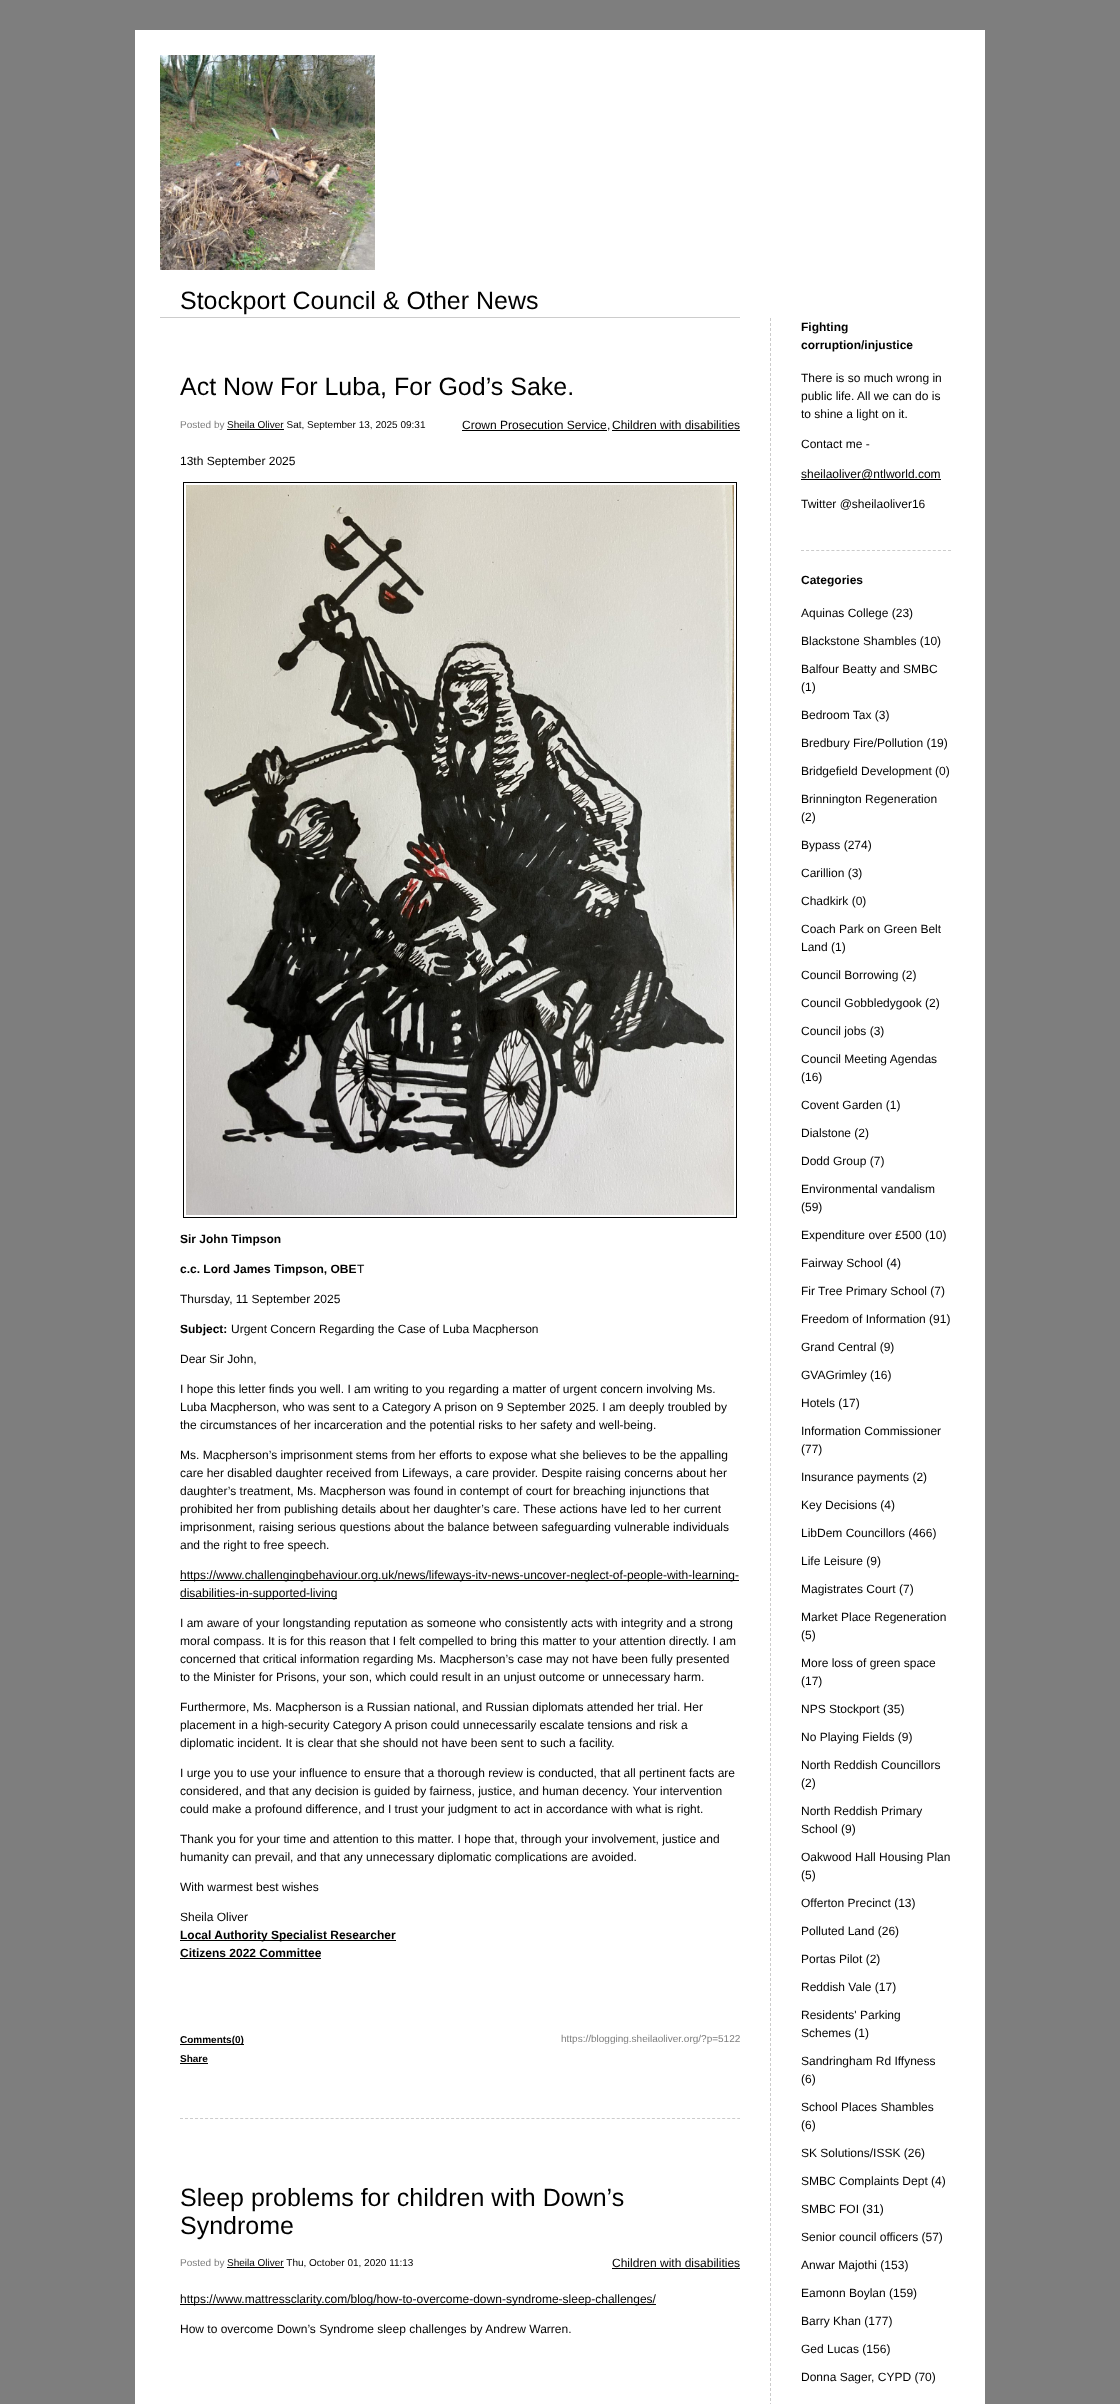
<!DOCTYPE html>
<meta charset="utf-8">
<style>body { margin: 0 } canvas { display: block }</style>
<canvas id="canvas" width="1120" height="2404"></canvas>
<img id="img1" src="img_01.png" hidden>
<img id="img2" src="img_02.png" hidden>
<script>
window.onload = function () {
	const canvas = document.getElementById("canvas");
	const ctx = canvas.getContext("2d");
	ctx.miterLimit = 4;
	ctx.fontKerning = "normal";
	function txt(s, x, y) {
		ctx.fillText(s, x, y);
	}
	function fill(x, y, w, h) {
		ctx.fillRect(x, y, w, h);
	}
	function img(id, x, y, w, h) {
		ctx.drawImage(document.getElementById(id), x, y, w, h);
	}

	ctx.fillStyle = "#7E7E7E";
	fill(0, 0, 1120, 2404);
	ctx.fillStyle = "#FFFFFF";
	fill(135, 30, 850, 2374);
	img("img1", 160, 55, 215, 215);
	ctx.fillStyle = "#CCCCCC";
	fill(160, 317, 580, 1);
	ctx.beginPath();
	ctx.moveTo(180, 2118.5);
	ctx.lineTo(740, 2118.5);
	ctx.strokeStyle = "#CCCCCC";
	ctx.setLineDash([3, 2.02]);
	ctx.stroke();
	ctx.fillStyle = "#000000";
	fill(227, 429, 57, 1);
	fill(462, 430, 145, 1);
	fill(612, 430, 128, 1);
	ctx.strokeStyle = "#000000";
	ctx.setLineDash([]);
	ctx.strokeRect(183.5, 482.5, 553, 735);
	img("img2", 186, 485, 548, 730);
	fill(180, 1580, 559, 1);
	fill(180, 1598, 157, 1);
	fill(180, 1940, 216, 1);
	fill(180, 1958, 141, 1);
	fill(180, 2044, 64, 1);
	fill(180, 2063, 28, 1);
	fill(227, 2267, 57, 1);
	fill(612, 2268, 128, 1);
	fill(180, 2304, 476, 1);
	ctx.beginPath();
	ctx.moveTo(770.5, 318);
	ctx.lineTo(770.5, 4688);
	ctx.strokeStyle = "#CCCCCC";
	ctx.setLineDash([3, 2]);
	ctx.stroke();
	ctx.beginPath();
	ctx.moveTo(801, 550.5);
	ctx.lineTo(951, 550.5);
	ctx.setLineDash([3, 2.07]);
	ctx.stroke();
	fill(801, 479, 140, 1);
	ctx.font = "25px Liberation Sans";
	txt("Stockport Council & Other News", 180, 309);
	txt("Act Now For Luba, For God’s Sake.", 180, 395);
	ctx.font = "10px Liberation Sans";
	ctx.fillStyle = "#7E7E7E";
	txt("Posted by", 180, 428);
	ctx.fillStyle = "#000000";
	txt("Sheila Oliver Sat, September 13, 2025 09:31", 227, 428);
	ctx.font = "12px Liberation Sans";
	txt("Crown Prosecution Service", 462, 429);
	txt(",", 607, 429);
	txt("Children with disabilities", 612, 429);
	txt("13th September 2025", 180, 465);
	ctx.font = "bold 12px Liberation Sans";
	txt("Sir John Timpson", 180, 1243);
	txt("c.c. Lord James Timpson, OBE", 180, 1273);
	ctx.font = "12px Liberation Sans";
	txt("T", 357, 1273);
	txt("Thursday, 11 September 2025", 180, 1303);
	ctx.font = "bold 12px Liberation Sans";
	txt("Subject:", 180, 1333);
	ctx.font = "12px Liberation Sans";
	txt("Urgent Concern Regarding the Case of Luba Macpherson", 231, 1333);
	txt("Dear Sir John,", 180, 1363);
	txt("I hope this letter finds you well. I am writing to you regarding a matter of urgent concern involving Ms.", 180, 1393);
	txt("Luba Macpherson, who was sent to a Category A prison on 9 September 2025. I am deeply troubled by", 180, 1411);
	txt("the circumstances of her incarceration and the potential risks to her safety and well-being.", 180, 1429);
	txt("Ms. Macpherson’s imprisonment stems from her efforts to expose what she believes to be the appalling", 180, 1459);
	txt("care her disabled daughter received from Lifeways, a care provider. Despite raising concerns about her", 180, 1477);
	txt("daughter’s treatment, Ms. Macpherson was found in contempt of court for breaching injunctions that", 180, 1495);
	txt("prohibited her from publishing details about her daughter’s care. These actions have led to her current", 180, 1513);
	txt("imprisonment, raising serious questions about the balance between safeguarding vulnerable individuals", 180, 1531);
	txt("and the right to free speech.", 180, 1549);
	txt("https://www.challengingbehaviour.org.uk/news/lifeways-itv-news-uncover-neglect-of-people-with-learning-", 180, 1579);
	txt("disabilities-in-supported-living", 180, 1597);
	txt("I am aware of your longstanding reputation as someone who consistently acts with integrity and a strong", 180, 1627);
	txt("moral compass. It is for this reason that I felt compelled to bring this matter to your attention directly. I am", 180, 1645);
	txt("concerned that critical information regarding Ms. Macpherson’s case may not have been fully presented", 180, 1663);
	txt("to the Minister for Prisons, your son, which could result in an unjust outcome or unnecessary harm.", 180, 1681);
	txt("Furthermore, Ms. Macpherson is a Russian national, and Russian diplomats attended her trial. Her", 180, 1711);
	txt("placement in a high-security Category A prison could unnecessarily escalate tensions and risk a", 180, 1729);
	txt("diplomatic incident. It is clear that she should not have been sent to such a facility.", 180, 1747);
	txt("I urge you to use your influence to ensure that a thorough review is conducted, that all pertinent facts are", 180, 1777);
	txt("considered, and that any decision is guided by fairness, justice, and human decency. Your intervention", 180, 1795);
	txt("could make a profound difference, and I trust your judgment to act in accordance with what is right.", 180, 1813);
	txt("Thank you for your time and attention to this matter. I hope that, through your involvement, justice and", 180, 1843);
	txt("humanity can prevail, and that any unnecessary diplomatic complications are avoided.", 180, 1861);
	txt("With warmest best wishes", 180, 1891);
	txt("Sheila Oliver", 180, 1921);
	ctx.font = "bold 12px Liberation Sans";
	txt("Local Authority Specialist Researcher", 180, 1939);
	txt("Citizens 2022 Committee", 180, 1957);
	ctx.font = "bold 10px Liberation Sans";
	txt("Comments(0)", 180, 2043);
	ctx.font = "10px Liberation Sans";
	ctx.fillStyle = "#7E7E7E";
	txt("https://blogging.sheilaoliver.org/?p=5122", 561, 2042);
	ctx.font = "bold 10px Liberation Sans";
	ctx.fillStyle = "#000000";
	txt("Share", 180, 2062);
	ctx.font = "25px Liberation Sans";
	txt("Sleep problems for children with Down’s", 180, 2206);
	txt("Syndrome", 180, 2234);
	ctx.font = "10px Liberation Sans";
	ctx.fillStyle = "#7E7E7E";
	txt("Posted by", 180, 2266);
	ctx.fillStyle = "#000000";
	txt("Sheila Oliver Thu, October 01, 2020 11:13", 227, 2266);
	ctx.font = "12px Liberation Sans";
	txt("Children with disabilities", 612, 2267);
	txt("https://www.mattressclarity.com/blog/how-to-overcome-down-syndrome-sleep-challenges/", 180, 2303);
	txt("How to overcome Down’s Syndrome sleep challenges by Andrew Warren.", 180, 2333);
	ctx.font = "bold 12px Liberation Sans";
	txt("Fighting", 801, 331);
	txt("corruption/injustice", 801, 349);
	ctx.font = "12px Liberation Sans";
	txt("There is so much wrong in", 801, 382);
	txt("public life. All we can do is", 801, 400);
	txt("to shine a light on it.", 801, 418);
	txt("Contact me -", 801, 448);
	txt("sheilaoliver@ntlworld.com", 801, 478);
	txt("Twitter @sheilaoliver16", 801, 508);
	ctx.font = "bold 12px Liberation Sans";
	txt("Categories", 801, 584);
	ctx.font = "12px Liberation Sans";
	txt("Aquinas College (23)", 801, 617);
	txt("Blackstone Shambles (10)", 801, 645);
	txt("Balfour Beatty and SMBC", 801, 673);
	txt("(1)", 801, 691);
	txt("Bedroom Tax (3)", 801, 719);
	txt("Bredbury Fire/Pollution (19)", 801, 747);
	txt("Bridgefield Development (0)", 801, 775);
	txt("Brinnington Regeneration", 801, 803);
	txt("(2)", 801, 821);
	txt("Bypass (274)", 801, 849);
	txt("Carillion (3)", 801, 877);
	txt("Chadkirk (0)", 801, 905);
	txt("Coach Park on Green Belt", 801, 933);
	txt("Land (1)", 801, 951);
	txt("Council Borrowing (2)", 801, 979);
	txt("Council Gobbledygook (2)", 801, 1007);
	txt("Council jobs (3)", 801, 1035);
	txt("Council Meeting Agendas", 801, 1063);
	txt("(16)", 801, 1081);
	txt("Covent Garden (1)", 801, 1109);
	txt("Dialstone (2)", 801, 1137);
	txt("Dodd Group (7)", 801, 1165);
	txt("Environmental vandalism", 801, 1193);
	txt("(59)", 801, 1211);
	txt("Expenditure over £500 (10)", 801, 1239);
	txt("Fairway School (4)", 801, 1267);
	txt("Fir Tree Primary School (7)", 801, 1295);
	txt("Freedom of Information (91)", 801, 1323);
	txt("Grand Central (9)", 801, 1351);
	txt("GVAGrimley (16)", 801, 1379);
	txt("Hotels (17)", 801, 1407);
	txt("Information Commissioner", 801, 1435);
	txt("(77)", 801, 1453);
	txt("Insurance payments (2)", 801, 1481);
	txt("Key Decisions (4)", 801, 1509);
	txt("LibDem Councillors (466)", 801, 1537);
	txt("Life Leisure (9)", 801, 1565);
	txt("Magistrates Court (7)", 801, 1593);
	txt("Market Place Regeneration", 801, 1621);
	txt("(5)", 801, 1639);
	txt("More loss of green space", 801, 1667);
	txt("(17)", 801, 1685);
	txt("NPS Stockport (35)", 801, 1713);
	txt("No Playing Fields (9)", 801, 1741);
	txt("North Reddish Councillors", 801, 1769);
	txt("(2)", 801, 1787);
	txt("North Reddish Primary", 801, 1815);
	txt("School (9)", 801, 1833);
	txt("Oakwood Hall Housing Plan", 801, 1861);
	txt("(5)", 801, 1879);
	txt("Offerton Precinct (13)", 801, 1907);
	txt("Polluted Land (26)", 801, 1935);
	txt("Portas Pilot (2)", 801, 1963);
	txt("Reddish Vale (17)", 801, 1991);
	txt("Residents' Parking", 801, 2019);
	txt("Schemes (1)", 801, 2037);
	txt("Sandringham Rd Iffyness", 801, 2065);
	txt("(6)", 801, 2083);
	txt("School Places Shambles", 801, 2111);
	txt("(6)", 801, 2129);
	txt("SK Solutions/ISSK (26)", 801, 2157);
	txt("SMBC Complaints Dept (4)", 801, 2185);
	txt("SMBC FOI (31)", 801, 2213);
	txt("Senior council officers (57)", 801, 2241);
	txt("Anwar Majothi (153)", 801, 2269);
	txt("Eamonn Boylan (159)", 801, 2297);
	txt("Barry Khan (177)", 801, 2325);
	txt("Ged Lucas (156)", 801, 2353);
	txt("Donna Sager, CYPD (70)", 801, 2381);
};
</script>
